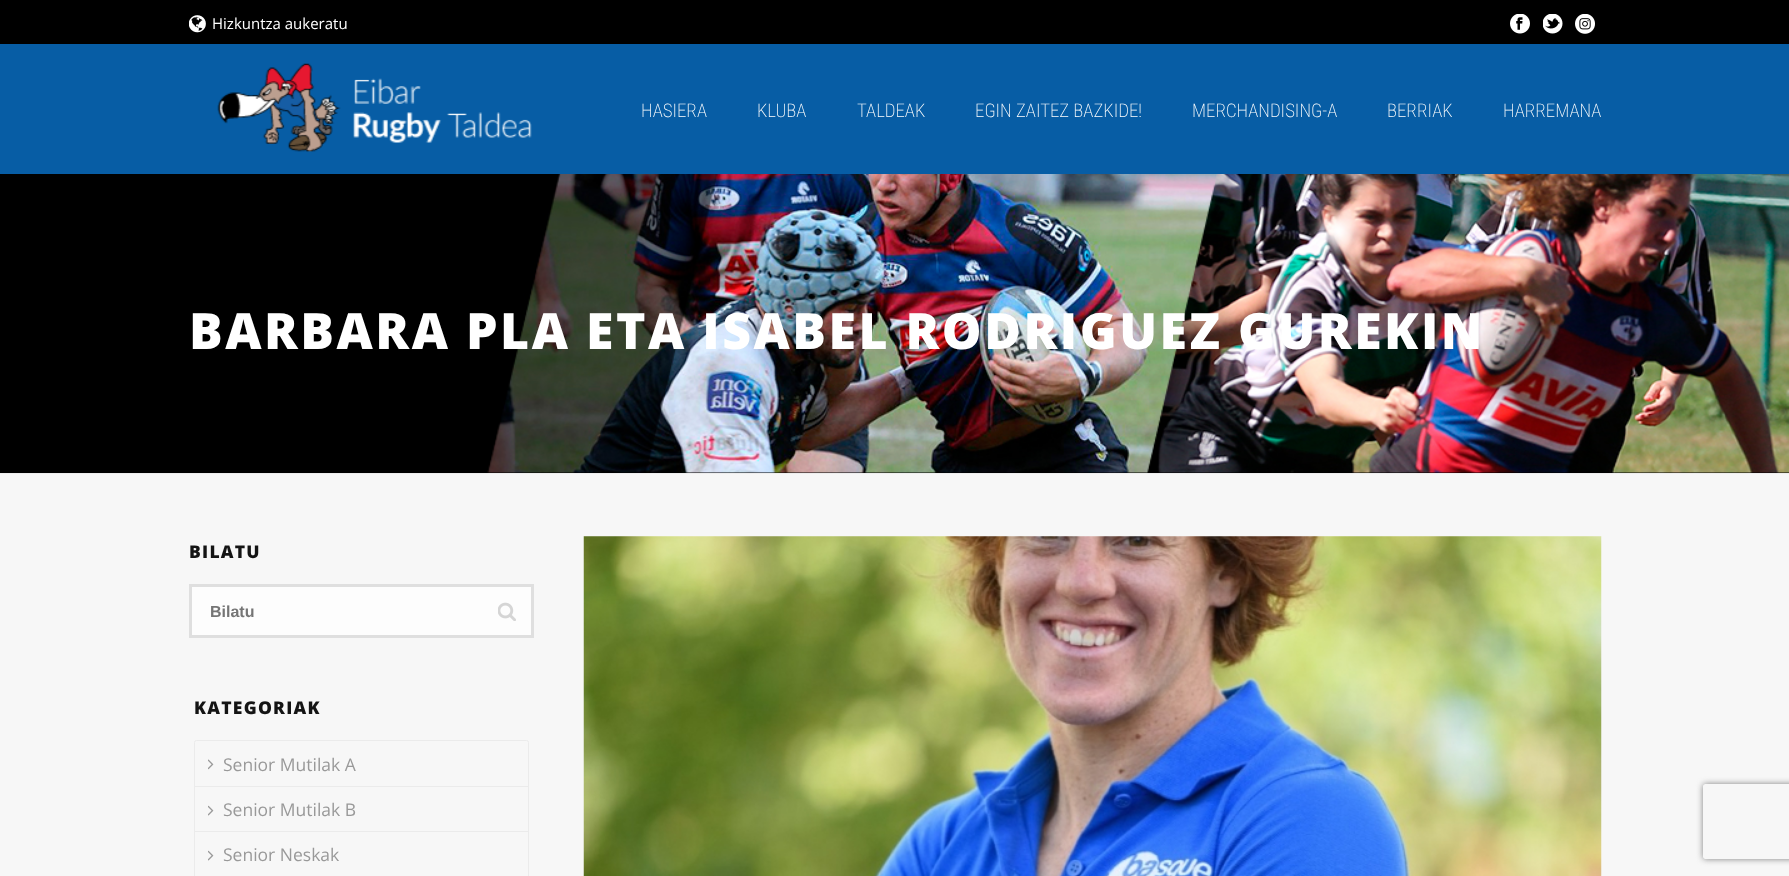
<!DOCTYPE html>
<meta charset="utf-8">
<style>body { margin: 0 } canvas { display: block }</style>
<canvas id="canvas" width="1789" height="876"></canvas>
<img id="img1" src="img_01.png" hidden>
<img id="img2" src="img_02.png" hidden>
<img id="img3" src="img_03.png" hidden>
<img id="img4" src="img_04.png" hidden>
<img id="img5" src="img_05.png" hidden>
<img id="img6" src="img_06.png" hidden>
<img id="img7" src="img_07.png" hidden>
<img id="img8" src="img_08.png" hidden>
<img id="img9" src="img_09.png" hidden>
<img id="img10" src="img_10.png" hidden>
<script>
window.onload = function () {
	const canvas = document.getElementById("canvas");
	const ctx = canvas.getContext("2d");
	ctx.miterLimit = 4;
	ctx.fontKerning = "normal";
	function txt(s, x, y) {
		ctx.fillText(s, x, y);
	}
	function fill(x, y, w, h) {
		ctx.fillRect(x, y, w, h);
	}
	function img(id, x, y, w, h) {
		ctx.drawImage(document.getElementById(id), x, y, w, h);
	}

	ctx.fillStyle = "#F7F7F7";
	fill(0, 0, 1789, 876);
	ctx.fillStyle = "#000000";
	fill(0, 0, 1789, 473);
	img("img1", 487, 174, 1302, 299);
	ctx.fillStyle = "#EDEDED";
	fill(0, 473, 1789, 1);
	img("img2", 189, 15, 17, 18);
	img("img3", 1510, 14, 20, 20);
	img("img4", 1543, 14, 20, 20);
	img("img5", 1575, 14, 20, 20);
	ctx.fillStyle = "#075DA5";
	fill(0, 44, 1789, 130);
	img("img6", 217, 63, 315, 89);
	ctx.fillStyle = "#FDFDFD";
	ctx.beginPath();
	ctx.rect(190.5, 585.5, 342, 51);
	ctx.fill();
	ctx.strokeStyle = "#DFDFDF";
	ctx.lineWidth = 3;
	ctx.stroke();
	img("img7", 498, 602, 18, 19);
	ctx.beginPath();
	ctx.roundRect(194.5, 740.5, 334, 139, 2);
	ctx.strokeStyle = "#EBEBEB";
	ctx.lineWidth = 1;
	ctx.stroke();
	ctx.fillStyle = "#EBEBEB";
	fill(195, 786, 333, 1);
	img("img8", 208, 759, 6, 11);
	fill(195, 831, 333, 1);
	img("img9", 208, 805, 6, 11);
	img("img9", 208, 850, 6, 11);
	img("img10", 583, 536, 1019, 340);
	ctx.save();
	ctx.beginPath();
	ctx.moveTo(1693, 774);
	ctx.lineTo(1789, 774);
	ctx.lineTo(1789, 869);
	ctx.lineTo(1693, 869);
	ctx.closePath();
	ctx.moveTo(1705.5, 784);
	ctx.lineTo(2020.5, 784);
	ctx.bezierCurveTo(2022, 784, 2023, 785, 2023, 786.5);
	ctx.lineTo(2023, 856.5);
	ctx.bezierCurveTo(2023, 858, 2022, 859, 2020.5, 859);
	ctx.lineTo(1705.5, 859);
	ctx.bezierCurveTo(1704, 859, 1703, 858, 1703, 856.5);
	ctx.lineTo(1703, 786.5);
	ctx.bezierCurveTo(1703, 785, 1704, 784, 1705.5, 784);
	ctx.closePath();
	ctx.clip("evenodd");
	ctx.fillStyle = "#808080";
	ctx.filter = "blur(3px)";
	ctx.beginPath();
	ctx.roundRect(1703, 784, 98, 75, 2.5);
	ctx.fill();
	ctx.filter = "none";
	ctx.restore();
	ctx.font = "15px Open Sans";
	ctx.fillStyle = "#FFFFFF";
	txt("Hizkuntza aukeratu", 212, 29);
	ctx.font = "200 18.75px Roboto Condensed";
	txt("HASIERA", 641, 117);
	txt("KLUBA", 757, 117);
	txt("TALDEAK", 857, 117);
	txt("EGIN ZAITEZ BAZKIDE!", 975, 117);
	txt("MERCHANDISING-A", 1192, 117);
	txt("BERRIAK", 1387, 117);
	txt("HARREMANA", 1503, 117);
	ctx.letterSpacing = "2.5px";
	ctx.font = "800 50px Open Sans";
	txt("BARBARA PLA ETA ISABEL RODRIGUEZ GUREKIN", 189, 349);
	ctx.letterSpacing = "1.25px";
	ctx.font = "800 17.5px Open Sans";
	ctx.fillStyle = "#141414";
	txt("BILATU", 189, 558);
	ctx.letterSpacing = "0px";
	ctx.font = "bold 16px Liberation Sans";
	ctx.fillStyle = "#757575";
	txt("Bilatu", 210, 617);
	ctx.letterSpacing = "1.25px";
	ctx.font = "800 17.5px Open Sans";
	ctx.fillStyle = "#141414";
	txt("KATEGORIAK", 194, 714);
	ctx.letterSpacing = "0px";
	ctx.font = "17.5px Open Sans";
	ctx.fillStyle = "#999999";
	txt("Senior Mutilak A", 223, 771);
	txt("Senior Mutilak B", 223, 816);
	txt("Senior Neskak", 223, 861);
};
</script>
